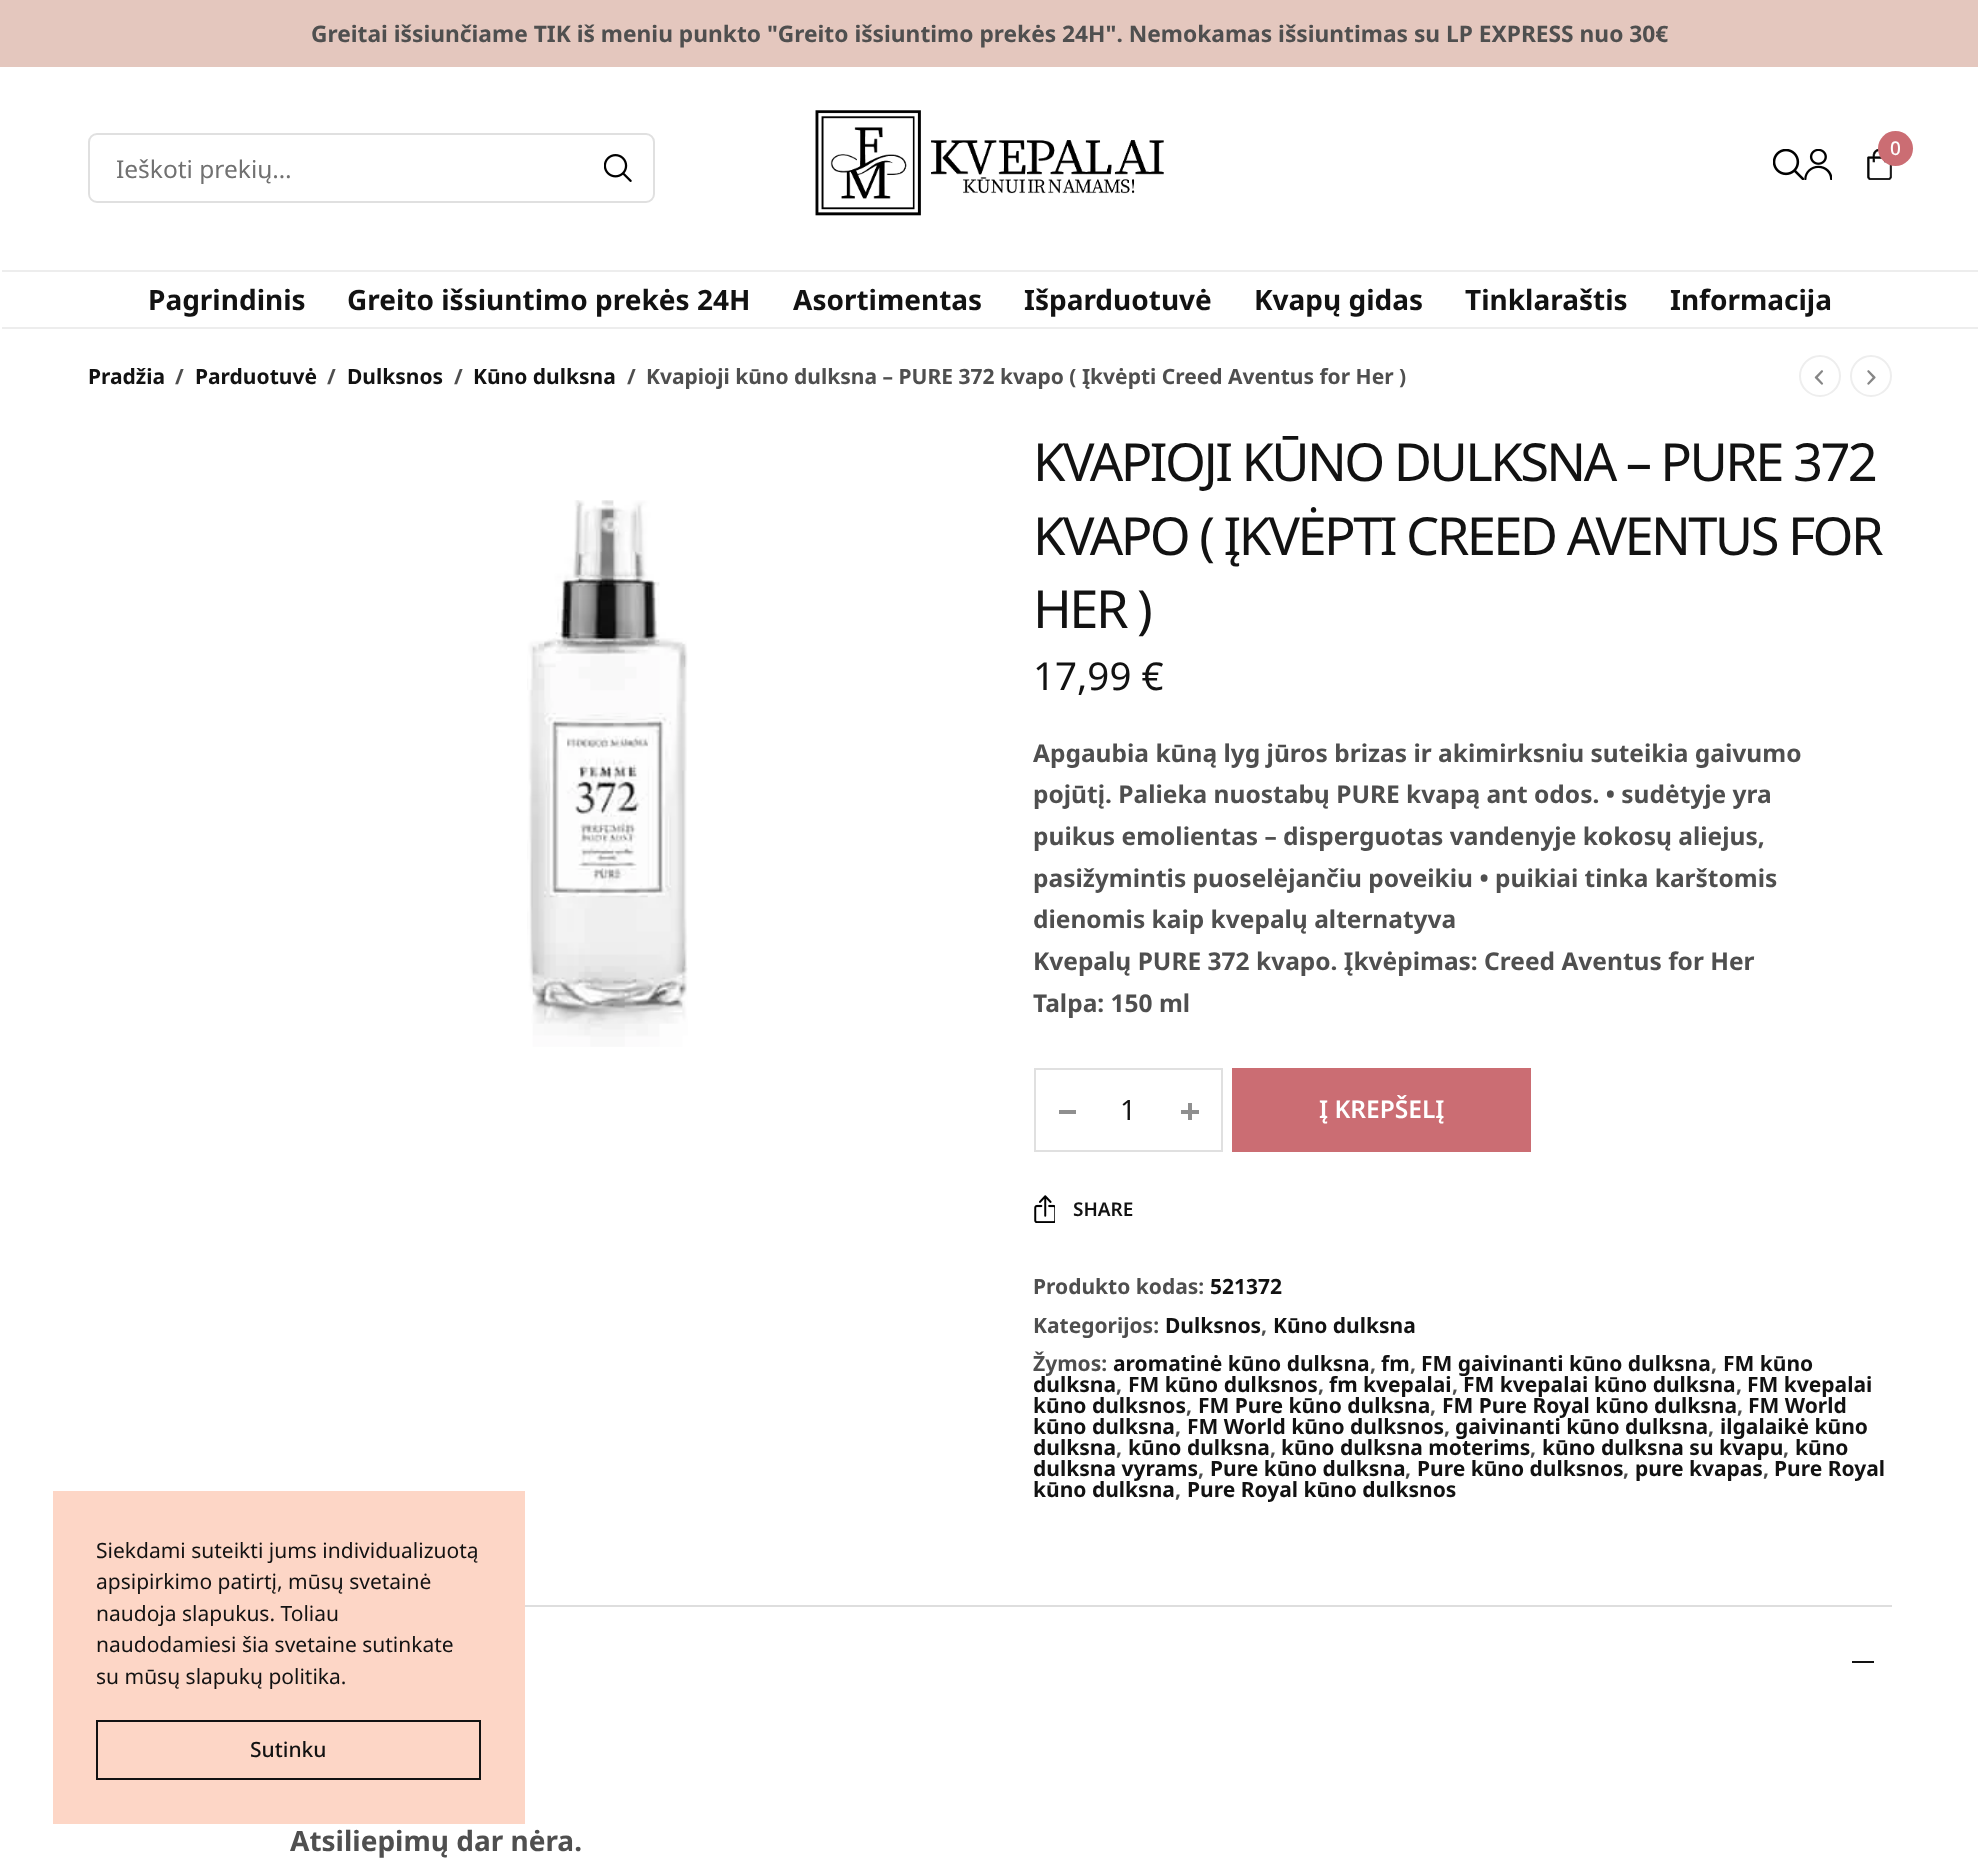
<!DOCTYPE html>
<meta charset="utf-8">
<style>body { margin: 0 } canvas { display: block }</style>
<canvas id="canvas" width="1978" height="1876"></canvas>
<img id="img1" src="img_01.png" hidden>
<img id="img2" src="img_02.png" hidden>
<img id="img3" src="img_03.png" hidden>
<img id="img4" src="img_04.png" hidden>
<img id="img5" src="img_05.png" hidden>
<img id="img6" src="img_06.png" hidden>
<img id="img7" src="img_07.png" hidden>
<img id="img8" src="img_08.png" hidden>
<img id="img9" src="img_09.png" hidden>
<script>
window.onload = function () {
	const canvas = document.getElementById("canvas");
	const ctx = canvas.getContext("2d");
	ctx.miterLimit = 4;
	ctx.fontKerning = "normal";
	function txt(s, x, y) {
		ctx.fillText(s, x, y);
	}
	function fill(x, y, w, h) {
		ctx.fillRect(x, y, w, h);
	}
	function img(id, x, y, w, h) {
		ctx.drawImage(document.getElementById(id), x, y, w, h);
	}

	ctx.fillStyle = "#FFFFFF";
	fill(0, 0, 1978, 1876);
	ctx.fillStyle = "#E4C7BE";
	fill(0, 0, 1978, 67);
	img("img1", 815, 110, 349, 106);
	img("img2", 1773, 149, 31, 31);
	img("img3", 1804, 149, 28, 31);
	img("img4", 1867, 149, 25, 31);
	ctx.fillStyle = "#CB6D73";
	ctx.beginPath();
	ctx.arc(1895.5, 148.5, 17.5, 0, Math.PI * 2);
	ctx.fill();
	ctx.beginPath();
	ctx.roundRect(89, 134, 565, 68, 8);
	ctx.strokeStyle = "#E0E0E0";
	ctx.lineWidth = 2;
	ctx.stroke();
	img("img5", 604, 154, 28, 28);
	ctx.fillStyle = "#EDEDED";
	fill(2, 270, 1976, 2);
	fill(2, 327, 1976, 2);
	ctx.beginPath();
	ctx.arc(1820, 376, 20, 0, Math.PI * 2);
	ctx.strokeStyle = "#EEEEEE";
	ctx.stroke();
	img("img6", 1814, 370, 10, 15);
	ctx.beginPath();
	ctx.arc(1871, 376, 20, 0, Math.PI * 2);
	ctx.stroke();
	img("img7", 1867, 370, 9, 15);
	img("img8", 527, 500, 161, 547);
	ctx.fillStyle = "#CB6D73";
	fill(1232, 1068, 299, 84);
	img("img9", 1034, 1195, 21, 28);
	ctx.strokeStyle = "#E0E0E0";
	ctx.strokeRect(1035, 1069, 187, 82);
	ctx.fillStyle = "#8F8F8F";
	fill(1059, 1110, 17, 4);
	fill(1188, 1103, 4, 17);
	fill(1181, 1110, 18, 4);
	ctx.fillStyle = "#DEDEDE";
	fill(525, 1605, 1367, 2);
	ctx.fillStyle = "#121212";
	fill(1852, 1661, 22, 2);
	ctx.fillStyle = "#FDD6C6";
	fill(53, 1491, 472, 333);
	ctx.strokeStyle = "#121212";
	ctx.strokeRect(97, 1721, 383, 58);
	ctx.font = "bold 22.75px Noto Sans";
	ctx.fillStyle = "#4F4F4F";
	txt("Greitai išsiunčiame TIK iš meniu punkto \"Greito išsiuntimo prekės 24H\". Nemokamas išsiuntimas su LP EXPRESS nuo 30€", 311, 42);
	ctx.font = "500 19px Noto Sans";
	ctx.fillStyle = "#FFFFFF";
	txt("0", 1890, 155);
	ctx.font = "24.5px Noto Sans";
	ctx.fillStyle = "#717171";
	txt("Ieškoti prekių…", 116, 178);
	ctx.font = "bold 28px Noto Sans";
	ctx.fillStyle = "#121212";
	txt("Pagrindinis", 148, 310);
	txt("Greito išsiuntimo prekės 24H", 347, 310);
	txt("Asortimentas", 793, 310);
	txt("Išparduotuvė", 1024, 310);
	txt("Kvapų gidas", 1254, 310);
	txt("Tinklaraštis", 1465, 310);
	txt("Informacija", 1670, 310);
	ctx.font = "bold 21px Noto Sans";
	txt("Pradžia", 88, 384);
	ctx.fillStyle = "#4F4F4F";
	txt("/", 175, 384);
	ctx.fillStyle = "#121212";
	txt("Parduotuvė", 195, 384);
	ctx.fillStyle = "#4F4F4F";
	txt("/", 327, 384);
	ctx.fillStyle = "#121212";
	txt("Dulksnos", 347, 384);
	ctx.fillStyle = "#4F4F4F";
	txt("/", 454, 384);
	ctx.fillStyle = "#121212";
	txt("Kūno dulksna", 473, 384);
	ctx.fillStyle = "#4F4F4F";
	txt("/", 627, 384);
	txt("Kvapioji kūno dulksna – PURE 372 kvapo ( Įkvėpti Creed Aventus for Her )", 646, 384);
	ctx.letterSpacing = "-2.6px";
	ctx.font = "52.5px Noto Sans";
	ctx.fillStyle = "#121212";
	txt("KVAPIOJI KŪNO DULKSNA – PURE 372", 1033, 481);
	txt("KVAPO ( ĮKVĖPTI CREED AVENTUS FOR", 1033, 555);
	txt("HER )", 1033, 628);
	ctx.letterSpacing = "0px";
	ctx.font = "38.5px Noto Sans";
	txt("17,99 €", 1033, 690);
	ctx.font = "bold 24.5px Noto Sans";
	ctx.fillStyle = "#4F4F4F";
	txt("Apgaubia kūną lyg jūros brizas ir akimirksniu suteikia gaivumo", 1033, 762);
	txt("pojūtį. Palieka nuostabų PURE kvapą ant odos. • sudėtyje yra", 1033, 803);
	txt("puikus emolientas – disperguotas vandenyje kokosų aliejus,", 1033, 845);
	txt("pasižymintis puoselėjančiu poveikiu • puikiai tinka karštomis", 1033, 887);
	txt("dienomis kaip kvepalų alternatyva", 1033, 928);
	txt("Kvepalų PURE 372 kvapo. Įkvėpimas: Creed Aventus for Her", 1033, 970);
	txt("Talpa: 150 ml", 1033, 1012);
	ctx.font = "600 24.5px Noto Sans";
	ctx.fillStyle = "#FFFFFF";
	txt("Į KREPŠELĮ", 1319, 1118);
	ctx.font = "600 19px Noto Sans";
	ctx.fillStyle = "#121212";
	txt("SHARE", 1073, 1216);
	ctx.font = "bold 21px Noto Sans";
	ctx.fillStyle = "#4F4F4F";
	txt("Produkto kodas:", 1033, 1294);
	ctx.fillStyle = "#121212";
	txt("521372", 1210, 1294);
	ctx.fillStyle = "#4F4F4F";
	txt("Kategorijos:", 1033, 1333);
	ctx.fillStyle = "#121212";
	txt("Dulksnos", 1165, 1333);
	ctx.fillStyle = "#4F4F4F";
	txt(",", 1261, 1333);
	ctx.fillStyle = "#121212";
	txt("Kūno dulksna", 1273, 1333);
	ctx.fillStyle = "#4F4F4F";
	txt("Žymos:", 1033, 1371);
	ctx.fillStyle = "#121212";
	txt("aromatinė kūno dulksna", 1113, 1371);
	ctx.fillStyle = "#4F4F4F";
	txt(",", 1370, 1371);
	ctx.fillStyle = "#121212";
	txt("fm", 1381, 1371);
	ctx.fillStyle = "#4F4F4F";
	txt(",", 1410, 1371);
	ctx.fillStyle = "#121212";
	txt("FM gaivinanti kūno dulksna", 1421, 1371);
	ctx.fillStyle = "#4F4F4F";
	txt(",", 1711, 1371);
	ctx.fillStyle = "#121212";
	txt("FM kūno", 1723, 1371);
	txt("dulksna", 1033, 1392);
	ctx.fillStyle = "#4F4F4F";
	txt(",", 1116, 1392);
	ctx.fillStyle = "#121212";
	txt("FM kūno dulksnos", 1128, 1392);
	ctx.fillStyle = "#4F4F4F";
	txt(",", 1318, 1392);
	ctx.fillStyle = "#121212";
	txt("fm kvepalai", 1329, 1392);
	ctx.fillStyle = "#4F4F4F";
	txt(",", 1452, 1392);
	ctx.fillStyle = "#121212";
	txt("FM kvepalai kūno dulksna", 1463, 1392);
	ctx.fillStyle = "#4F4F4F";
	txt(",", 1736, 1392);
	ctx.fillStyle = "#121212";
	txt("FM kvepalai", 1747, 1392);
	txt("kūno dulksnos", 1033, 1413);
	ctx.fillStyle = "#4F4F4F";
	txt(",", 1186, 1413);
	ctx.fillStyle = "#121212";
	txt("FM Pure kūno dulksna", 1198, 1413);
	ctx.fillStyle = "#4F4F4F";
	txt(",", 1430, 1413);
	ctx.fillStyle = "#121212";
	txt("FM Pure Royal kūno dulksna", 1442, 1413);
	ctx.fillStyle = "#4F4F4F";
	txt(",", 1737, 1413);
	ctx.fillStyle = "#121212";
	txt("FM World", 1748, 1413);
	txt("kūno dulksna", 1033, 1434);
	ctx.fillStyle = "#4F4F4F";
	txt(",", 1175, 1434);
	ctx.fillStyle = "#121212";
	txt("FM World kūno dulksnos", 1187, 1434);
	ctx.fillStyle = "#4F4F4F";
	txt(",", 1444, 1434);
	ctx.fillStyle = "#121212";
	txt("gaivinanti kūno dulksna", 1455, 1434);
	ctx.fillStyle = "#4F4F4F";
	txt(",", 1708, 1434);
	ctx.fillStyle = "#121212";
	txt("ilgalaikė kūno", 1720, 1434);
	txt("dulksna", 1033, 1455);
	ctx.fillStyle = "#4F4F4F";
	txt(",", 1116, 1455);
	ctx.fillStyle = "#121212";
	txt("kūno dulksna", 1128, 1455);
	ctx.fillStyle = "#4F4F4F";
	txt(",", 1270, 1455);
	ctx.fillStyle = "#121212";
	txt("kūno dulksna moterims", 1281, 1455);
	ctx.fillStyle = "#4F4F4F";
	txt(",", 1530, 1455);
	ctx.fillStyle = "#121212";
	txt("kūno dulksna su kvapu", 1542, 1455);
	ctx.fillStyle = "#4F4F4F";
	txt(",", 1783, 1455);
	ctx.fillStyle = "#121212";
	txt("kūno", 1795, 1455);
	txt("dulksna vyrams", 1033, 1476);
	ctx.fillStyle = "#4F4F4F";
	txt(",", 1198, 1476);
	ctx.fillStyle = "#121212";
	txt("Pure kūno dulksna", 1210, 1476);
	ctx.fillStyle = "#4F4F4F";
	txt(",", 1405, 1476);
	ctx.fillStyle = "#121212";
	txt("Pure kūno dulksnos", 1417, 1476);
	ctx.fillStyle = "#4F4F4F";
	txt(",", 1623, 1476);
	ctx.fillStyle = "#121212";
	txt("pure kvapas", 1635, 1476);
	ctx.fillStyle = "#4F4F4F";
	txt(",", 1763, 1476);
	ctx.fillStyle = "#121212";
	txt("Pure Royal", 1774, 1476);
	txt("kūno dulksna", 1033, 1497);
	ctx.fillStyle = "#4F4F4F";
	txt(",", 1175, 1497);
	ctx.fillStyle = "#121212";
	txt("Pure Royal kūno dulksnos", 1187, 1497);
	ctx.font = "28px Noto Sans";
	txt("1", 1120, 1120);
	ctx.font = "bold 28px Noto Sans";
	ctx.fillStyle = "#4F4F4F";
	txt("Atsiliepimų dar nėra.", 290, 1851);
	ctx.font = "21px Noto Sans";
	ctx.fillStyle = "#121212";
	txt("Siekdami suteikti jums individualizuotą", 96, 1558);
	txt("apsipirkimo patirtį, mūsų svetainė", 96, 1589);
	txt("naudoja slapukus. Toliau", 96, 1621);
	txt("naudodamiesi šia svetaine sutinkate", 96, 1652);
	txt("su mūsų slapukų politika.", 96, 1684);
	ctx.font = "500 21px Noto Sans";
	txt("Sutinku", 250, 1757);
};
</script>
